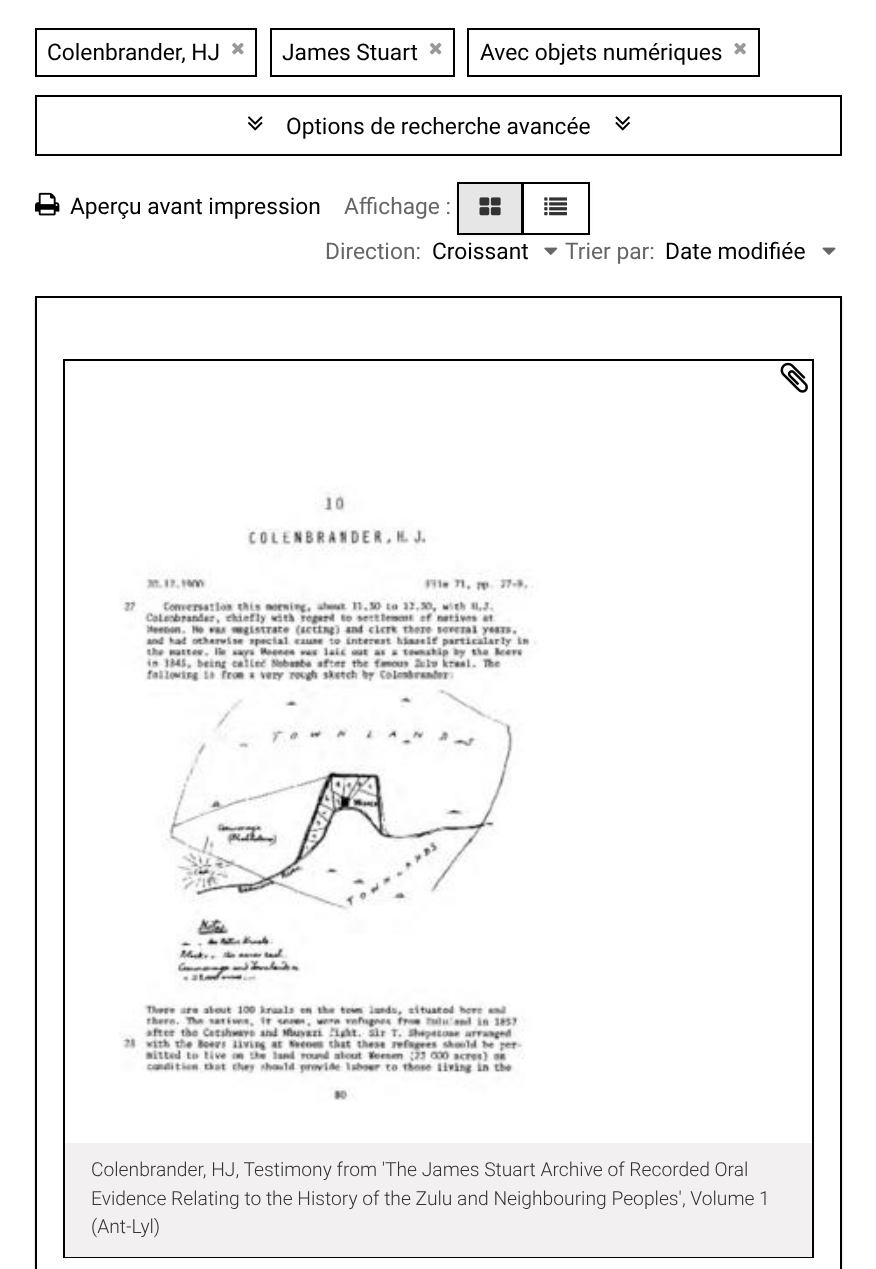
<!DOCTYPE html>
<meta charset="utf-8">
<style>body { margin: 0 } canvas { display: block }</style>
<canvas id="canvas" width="876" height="1269"></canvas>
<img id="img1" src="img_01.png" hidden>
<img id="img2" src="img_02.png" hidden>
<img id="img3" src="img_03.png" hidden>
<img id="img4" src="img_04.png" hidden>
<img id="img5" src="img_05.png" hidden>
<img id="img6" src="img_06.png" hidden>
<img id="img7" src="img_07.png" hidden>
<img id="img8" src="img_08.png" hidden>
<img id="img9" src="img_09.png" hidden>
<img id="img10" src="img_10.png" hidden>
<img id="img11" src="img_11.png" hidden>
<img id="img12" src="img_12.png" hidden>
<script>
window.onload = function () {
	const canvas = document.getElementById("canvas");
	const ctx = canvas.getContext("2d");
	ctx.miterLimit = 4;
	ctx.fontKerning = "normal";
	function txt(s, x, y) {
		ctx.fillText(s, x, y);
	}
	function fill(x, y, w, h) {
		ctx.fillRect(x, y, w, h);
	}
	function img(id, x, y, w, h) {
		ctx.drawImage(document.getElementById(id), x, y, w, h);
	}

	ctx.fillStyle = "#FFFFFF";
	fill(0, 0, 876, 1269);
	ctx.strokeStyle = "#000000";
	ctx.lineWidth = 2;
	ctx.strokeRect(36, 29, 220, 47);
	img("img1", 232, 42, 12, 13);
	ctx.strokeRect(271, 29, 183, 47);
	img("img2", 429, 42, 13, 13);
	ctx.strokeRect(468, 29, 291, 47);
	img("img3", 734, 42, 12, 13);
	ctx.strokeRect(36, 96, 805, 59);
	img("img4", 247, 116, 16, 15);
	img("img5", 615, 116, 15, 15);
	img("img6", 35, 192, 25, 24);
	ctx.fillStyle = "rgba(0, 0, 0, 0.05)";
	ctx.filter = "blur(2px)";
	ctx.beginPath();
	ctx.rect(522, 184, 68, 52);
	ctx.fill();
	ctx.filter = "none";
	ctx.fillStyle = "#FFFFFF";
	ctx.beginPath();
	ctx.rect(523, 183, 66, 51);
	ctx.fill();
	ctx.stroke();
	ctx.fillStyle = "rgba(0, 0, 0, 0.05)";
	ctx.filter = "blur(2px)";
	ctx.beginPath();
	ctx.rect(457, 184, 66, 52);
	ctx.fill();
	ctx.filter = "none";
	ctx.fillStyle = "#E6E6E6";
	ctx.beginPath();
	ctx.rect(458, 183, 64, 51);
	ctx.fill();
	ctx.stroke();
	img("img7", 479, 197, 22, 19);
	img("img8", 544, 197, 23, 19);
	img("img9", 544, 247, 14, 8);
	img("img10", 822, 247, 14, 8);
	ctx.fillStyle = "rgba(0, 0, 0, 0.2)";
	ctx.filter = "blur(1px)";
	ctx.beginPath();
	ctx.rect(35, 298, 807, 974);
	ctx.fill();
	ctx.filter = "none";
	ctx.fillStyle = "#FFFFFF";
	ctx.beginPath();
	ctx.rect(36, 297, 805, 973);
	ctx.fill();
	ctx.stroke();
	ctx.strokeRect(64, 360, 749, 897);
	img("img11", 119, 485, 420, 616);
	ctx.fillStyle = "#F2F0F0";
	fill(65, 1143, 747, 114);
	img("img12", 780, 362, 28, 31);
	ctx.font = "22.75px Roboto";
	ctx.fillStyle = "#000000";
	txt("Colenbrander, HJ", 47, 60);
	txt("James Stuart", 282, 60);
	txt("Avec objets numériques", 480, 60);
	txt("Options de recherche avancée", 286, 134);
	txt("Aperçu avant impression", 70, 214);
	ctx.fillStyle = "#666666";
	txt("Affichage :", 344, 214);
	txt("Direction:", 325, 259);
	ctx.fillStyle = "#000000";
	txt("Croissant", 432, 259);
	ctx.fillStyle = "#666666";
	txt("Trier par:", 565, 259);
	ctx.fillStyle = "#000000";
	txt("Date modifiée", 665, 259);
	ctx.font = "300 19.25px Roboto";
	ctx.fillStyle = "#333333";
	txt("Colenbrander, HJ, Testimony from 'The James Stuart Archive of Recorded Oral", 91, 1176);
	txt("Evidence Relating to the History of the Zulu and Neighbouring Peoples', Volume 1", 91, 1205);
	txt("(Ant-Lyl)", 91, 1233);
};
</script>
